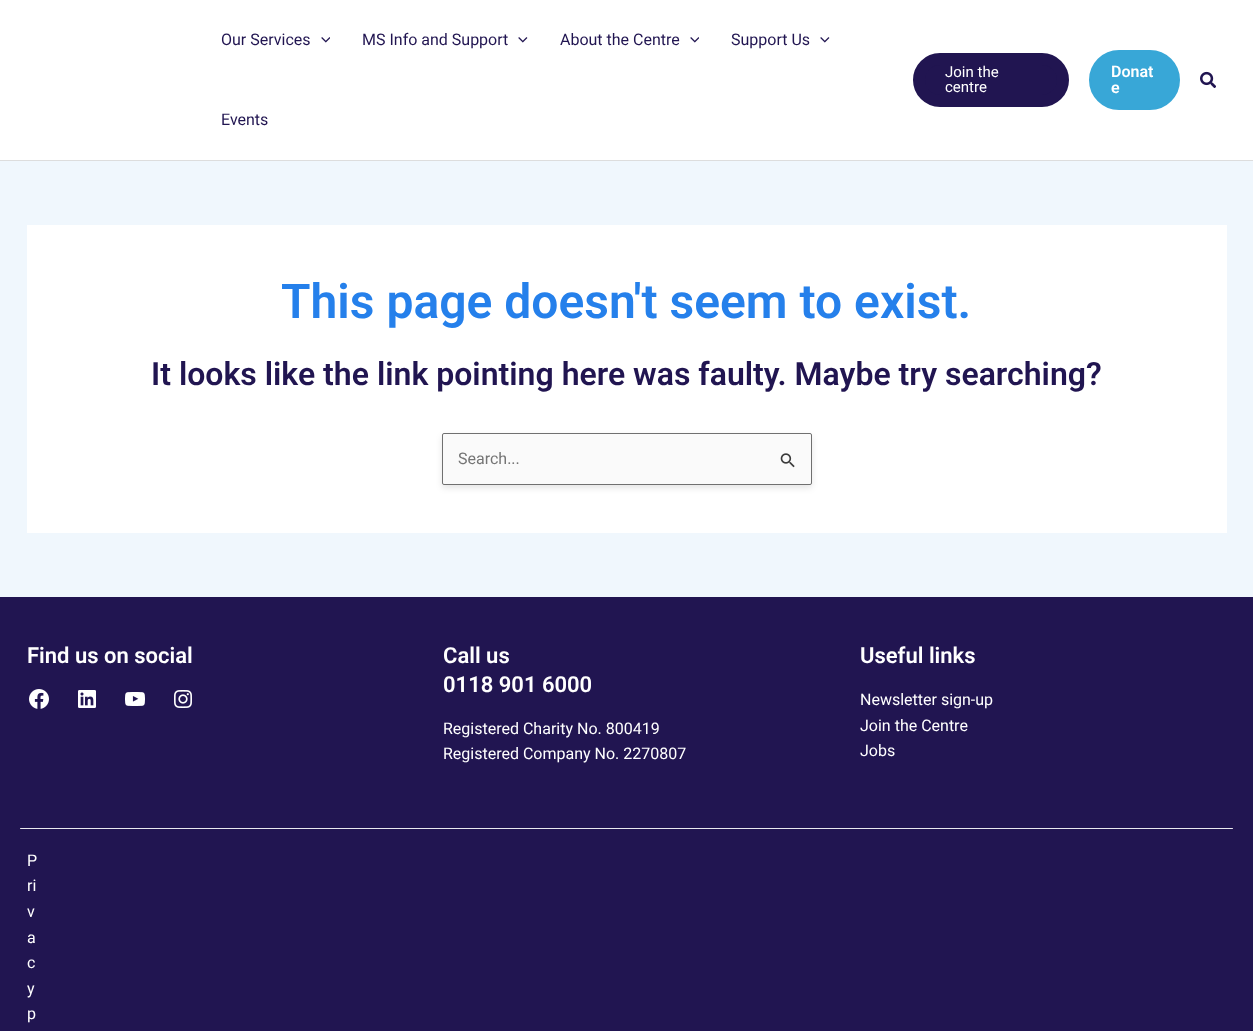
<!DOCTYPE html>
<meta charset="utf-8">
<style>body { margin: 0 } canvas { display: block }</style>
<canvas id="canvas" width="1253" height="1031"></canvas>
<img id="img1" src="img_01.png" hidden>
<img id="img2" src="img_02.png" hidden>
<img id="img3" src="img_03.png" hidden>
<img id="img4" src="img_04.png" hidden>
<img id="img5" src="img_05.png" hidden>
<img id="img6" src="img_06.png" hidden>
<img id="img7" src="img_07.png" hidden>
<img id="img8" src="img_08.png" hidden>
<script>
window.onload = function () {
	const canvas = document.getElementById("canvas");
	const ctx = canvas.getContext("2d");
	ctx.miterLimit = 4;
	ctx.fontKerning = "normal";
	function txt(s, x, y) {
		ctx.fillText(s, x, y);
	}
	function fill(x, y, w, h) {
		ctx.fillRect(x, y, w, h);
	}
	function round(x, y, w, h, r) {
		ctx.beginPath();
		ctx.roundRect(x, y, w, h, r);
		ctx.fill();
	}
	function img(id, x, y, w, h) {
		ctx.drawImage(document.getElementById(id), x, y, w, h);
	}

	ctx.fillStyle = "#F0F7FD";
	fill(0, 0, 1253, 1031);
	ctx.fillStyle = "#FFFFFF";
	fill(0, 0, 1253, 160);
	ctx.fillStyle = "#DDDDDD";
	fill(0, 160, 1253, 1);
	img("img1", 321, 37, 9, 6);
	img("img2", 518, 37, 10, 6);
	img("img1", 690, 37, 9, 6);
	img("img2", 820, 37, 10, 6);
	ctx.fillStyle = "#211551";
	ctx.beginPath();
	ctx.roundRect(919, 59, 144, 42, 21);
	ctx.fill();
	ctx.strokeStyle = "#211551";
	ctx.lineWidth = 12;
	ctx.stroke();
	ctx.fillStyle = "#38A7D7";
	ctx.beginPath();
	ctx.roundRect(1090, 51, 89, 58, 29);
	ctx.fill();
	ctx.strokeStyle = "#38A7D7";
	ctx.lineWidth = 2;
	ctx.stroke();
	img("img3", 1200, 71, 16, 17);
	ctx.fillStyle = "#FFFFFF";
	fill(27, 225, 1200, 308);
	ctx.fillStyle = "rgba(0, 0, 0, 0.1)";
	ctx.filter = "blur(3px)";
	ctx.beginPath();
	ctx.roundRect(442, 436, 370, 52, 2);
	ctx.fill();
	ctx.filter = "none";
	ctx.fillStyle = "#FAFAFA";
	ctx.beginPath();
	ctx.roundRect(442.5, 433.5, 369, 51, 1.5);
	ctx.fill();
	ctx.strokeStyle = "#707070";
	ctx.lineWidth = 1;
	ctx.stroke();
	img("img4", 780, 453, 15, 15);
	ctx.fillStyle = "#211551";
	fill(0, 597, 1253, 434);
	img("img5", 29, 689, 20, 20);
	img("img6", 78, 690, 18, 18);
	img("img7", 125, 692, 20, 14);
	img("img8", 174, 690, 18, 18);
	ctx.fillStyle = "#E9E8EE";
	round(20, 828, 1213, 1, 0.5);
	ctx.font = "16px Roboto";
	ctx.fillStyle = "#211551";
	txt("Our Services", 221, 45);
	txt("MS Info and Support", 362, 45);
	txt("About the Centre", 560, 45);
	txt("Support Us", 731, 45);
	txt("Events", 221, 125);
	ctx.font = "15px Roboto";
	ctx.fillStyle = "#FFFFFF";
	txt("Join the", 945, 77);
	txt("centre", 945, 92);
	ctx.font = "600 16px Roboto";
	txt("Donat", 1111, 77);
	txt("e", 1111, 93);
	ctx.font = "600 48px Roboto";
	ctx.fillStyle = "#2580EB";
	txt("This page doesn't seem to exist.", 281, 318);
	ctx.font = "600 32px Roboto";
	ctx.fillStyle = "#211551";
	txt("It looks like the link pointing here was faulty. Maybe try searching?", 151, 385);
	ctx.font = "16px Roboto";
	ctx.fillStyle = "#757575";
	txt("Search...", 458, 464);
	ctx.font = "600 22px Roboto";
	ctx.fillStyle = "#FFFFFF";
	txt("Find us on social", 27, 663);
	txt("Call us", 443, 663);
	txt("0118 901 6000", 443, 692);
	ctx.font = "16px Roboto";
	txt("Registered Charity No. 800419", 443, 734);
	txt("Registered Company No. 2270807", 443, 759);
	ctx.font = "600 22px Roboto";
	txt("Useful links", 860, 663);
	ctx.font = "16px Roboto";
	txt("Newsletter sign-up", 860, 705);
	txt("Join the Centre", 860, 731);
	txt("Jobs", 860, 756);
	txt("P", 27, 866);
	txt("ri", 27, 891);
	txt("v", 27, 917);
	txt("a", 27, 943);
	txt("c", 27, 968);
	txt("y", 27, 994);
	txt("p", 27, 1019);
};
</script>
